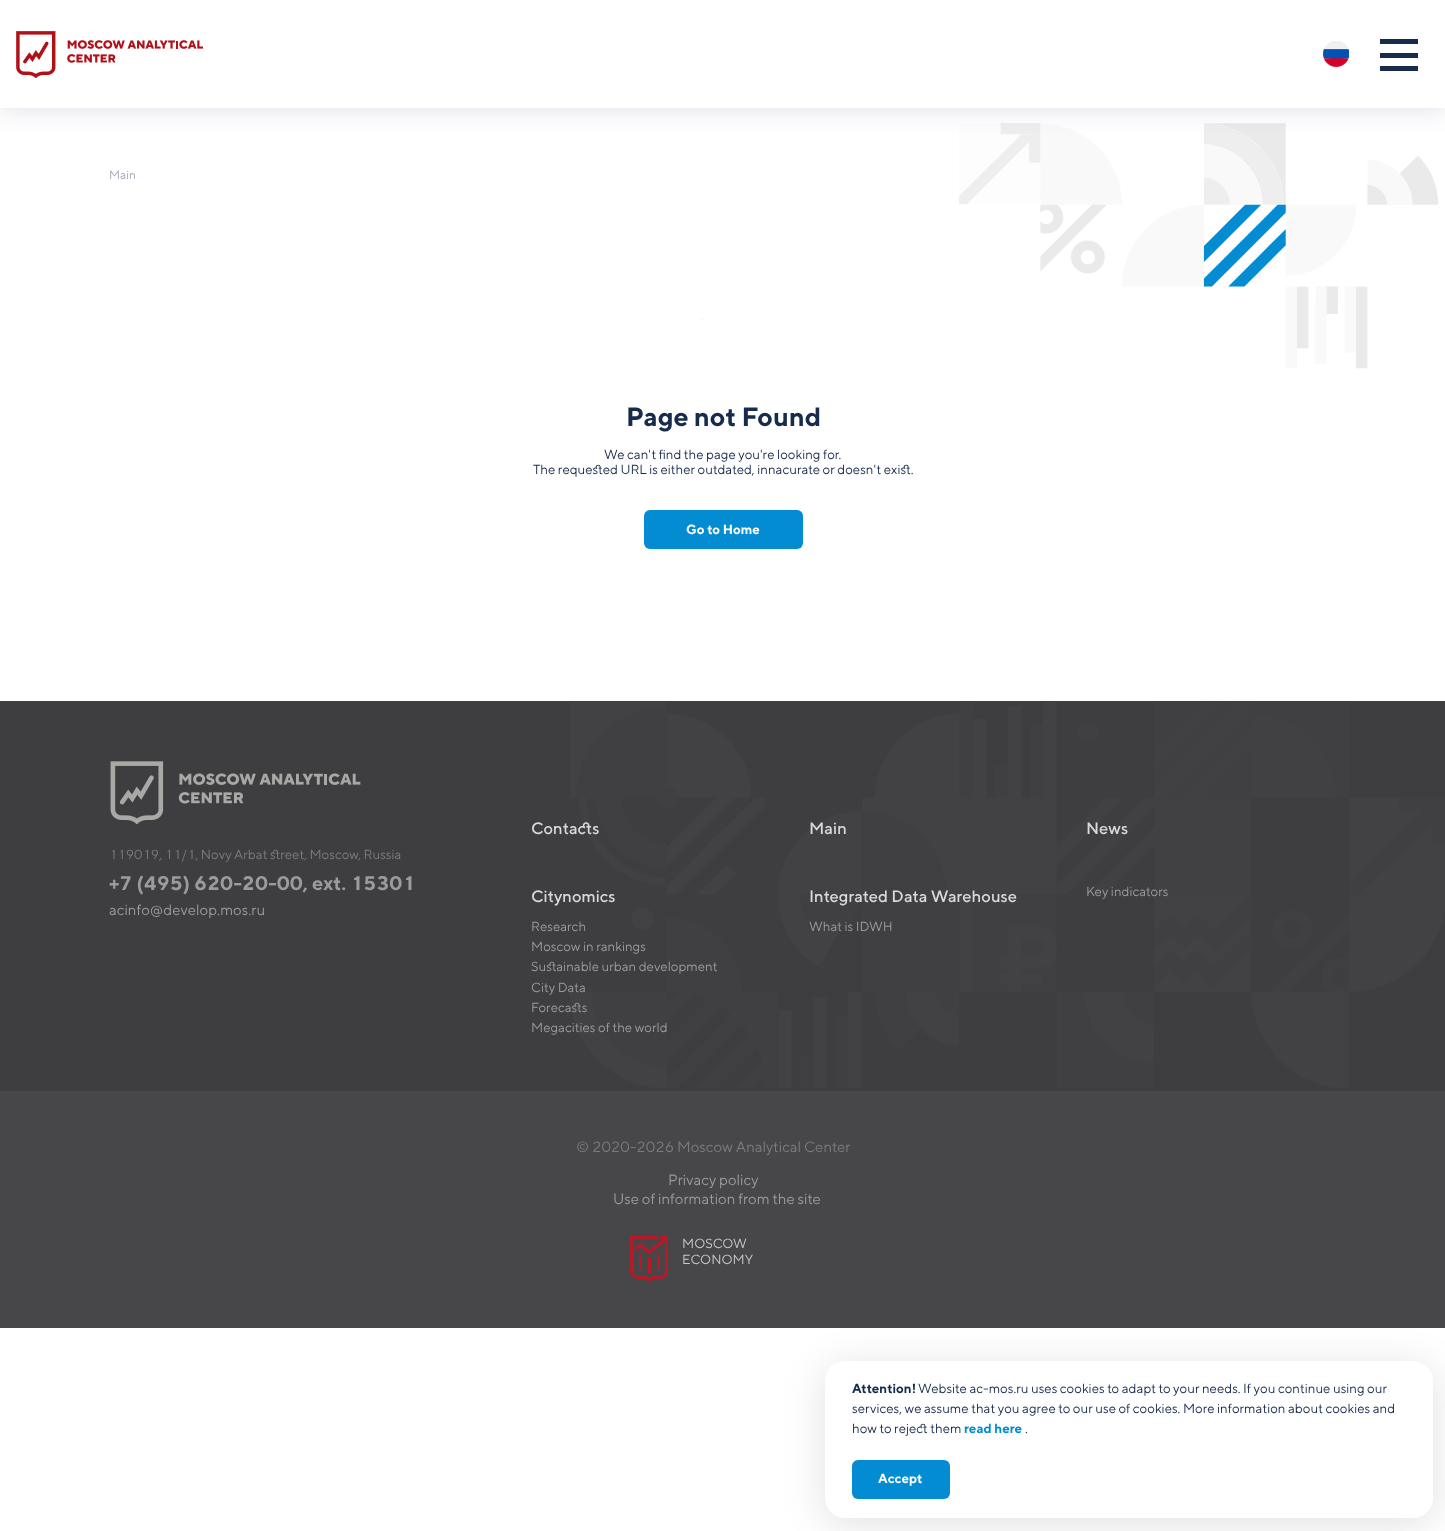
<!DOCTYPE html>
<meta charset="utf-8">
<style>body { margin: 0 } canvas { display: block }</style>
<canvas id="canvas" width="1445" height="1531"></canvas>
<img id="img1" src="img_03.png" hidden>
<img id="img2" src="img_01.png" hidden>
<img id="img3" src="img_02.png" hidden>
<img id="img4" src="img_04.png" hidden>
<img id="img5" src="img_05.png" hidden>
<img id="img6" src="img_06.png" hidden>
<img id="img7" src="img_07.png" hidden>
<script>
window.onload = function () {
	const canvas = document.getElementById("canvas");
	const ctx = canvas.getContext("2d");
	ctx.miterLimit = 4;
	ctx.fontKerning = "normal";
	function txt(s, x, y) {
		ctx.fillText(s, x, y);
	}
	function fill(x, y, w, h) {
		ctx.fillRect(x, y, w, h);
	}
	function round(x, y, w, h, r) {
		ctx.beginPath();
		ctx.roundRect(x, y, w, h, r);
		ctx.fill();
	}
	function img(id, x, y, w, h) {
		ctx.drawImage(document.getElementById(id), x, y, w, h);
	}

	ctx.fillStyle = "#FFFFFF";
	fill(0, 0, 1445, 1531);
	img("img1", 959, 123, 480, 246);
	ctx.fillStyle = "rgba(41, 26, 85, 0.16)";
	ctx.filter = "blur(13px)";
	ctx.beginPath();
	ctx.rect(0, 0, 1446, 108);
	ctx.fill();
	ctx.filter = "none";
	ctx.fillStyle = "#FFFFFF";
	fill(0, 0, 1445, 108);
	img("img2", 16, 31, 187, 48);
	img("img3", 1323, 41, 26, 26);
	ctx.fillStyle = "#172B4D";
	fill(1380, 39, 38, 5);
	fill(1380, 53, 38, 5);
	fill(1380, 66, 38, 5);
	img("img4", 702, 318, 1, 2);
	ctx.fillStyle = "#038CD2";
	round(644, 510, 159, 39, 6);
	ctx.fillStyle = "#3E3E41";
	fill(0, 701, 1445, 390);
	img("img5", 570, 702, 875, 386);
	img("img6", 110, 761, 251, 64);
	ctx.fillStyle = "#47474A";
	fill(0, 1091, 1445, 237);
	img("img7", 630, 1236, 38, 46);
	ctx.fillStyle = "rgba(0, 0, 0, 0.12)";
	ctx.filter = "blur(20px)";
	ctx.beginPath();
	ctx.roundRect(825, 1367, 608, 157, 20);
	ctx.fill();
	ctx.filter = "none";
	ctx.fillStyle = "#FFFFFF";
	round(825, 1361, 608, 157, 20);
	ctx.fillStyle = "#038CD2";
	round(852, 1460, 98, 39, 6);
	ctx.font = "12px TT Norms";
	ctx.fillStyle = "#A2AAB8";
	txt("Main", 109, 179);
	ctx.font = "bold 26.5px TT Norms";
	ctx.fillStyle = "#172B4D";
	txt("Page not Found", 626, 426);
	ctx.font = "13.2px TT Norms";
	txt("We can't find the page you're looking for.", 604, 459);
	txt("The requested URL is either outdated, innacurate or doesn't exist.", 533, 474);
	ctx.font = "bold 13.2px TT Norms";
	ctx.fillStyle = "#FFFFFF";
	txt("Go to Home", 686, 534);
	ctx.font = "13.2px TT Norms";
	ctx.fillStyle = "#7C7C7E";
	txt("119019, 11/1, Novy Arbat street, Moscow, Russia", 109, 859);
	ctx.font = "bold 19.75px TT Norms";
	ctx.fillStyle = "#9B9B9C";
	txt("+7 (495) 620-20-00, ext. 15301", 109, 890);
	ctx.font = "14.9px TT Norms";
	txt("acinfo@develop.mos.ru", 109, 915);
	ctx.font = "500 16.5px TT Norms";
	ctx.fillStyle = "#D9D9D9";
	txt("Contacts", 531, 834);
	txt("Main", 809, 834);
	txt("News", 1086, 834);
	txt("Citynomics", 531, 902);
	ctx.font = "13.2px TT Norms";
	ctx.fillStyle = "#9B9B9C";
	txt("Research", 531, 931);
	txt("Moscow in rankings", 531, 951);
	txt("Sustainable urban development", 531, 971);
	txt("City Data", 531, 992);
	txt("Forecasts", 531, 1012);
	txt("Megacities of the world", 531, 1032);
	ctx.font = "500 16.5px TT Norms";
	ctx.fillStyle = "#D9D9D9";
	txt("Integrated Data Warehouse", 809, 902);
	ctx.font = "13.2px TT Norms";
	ctx.fillStyle = "#9B9B9C";
	txt("What is IDWH", 809, 931);
	txt("Key indicators", 1086, 896);
	ctx.font = "14.9px TT Norms";
	ctx.fillStyle = "#7C7C7E";
	txt("© 2020-2026 Moscow Analytical Center", 576, 1152);
	ctx.fillStyle = "#9B9B9C";
	txt("Privacy policy", 668, 1185);
	txt("Use of information from the site", 613, 1204);
	ctx.font = "13.2px TT Norms";
	ctx.fillStyle = "#C8C8C9";
	txt("MOSCOW", 682, 1248);
	txt("ECONOMY", 682, 1264);
	ctx.font = "bold 13.2px TT Norms";
	ctx.fillStyle = "#172B4D";
	txt("Attention!", 852, 1393);
	ctx.font = "13.2px TT Norms";
	txt("Website ac-mos.ru uses cookies to adapt to your needs. If you continue using our", 918, 1393);
	txt("services, we assume that you agree to our use of cookies. More information about cookies and", 852, 1413);
	txt("how to reject them", 852, 1433);
	ctx.font = "bold 13.2px TT Norms";
	ctx.fillStyle = "#038CD2";
	txt("read here", 964, 1433);
	ctx.font = "13.2px TT Norms";
	ctx.fillStyle = "#172B4D";
	txt(".", 1025, 1433);
	ctx.font = "bold 13.2px TT Norms";
	ctx.fillStyle = "#FFFFFF";
	txt("Accept", 878, 1483);
};
</script>
